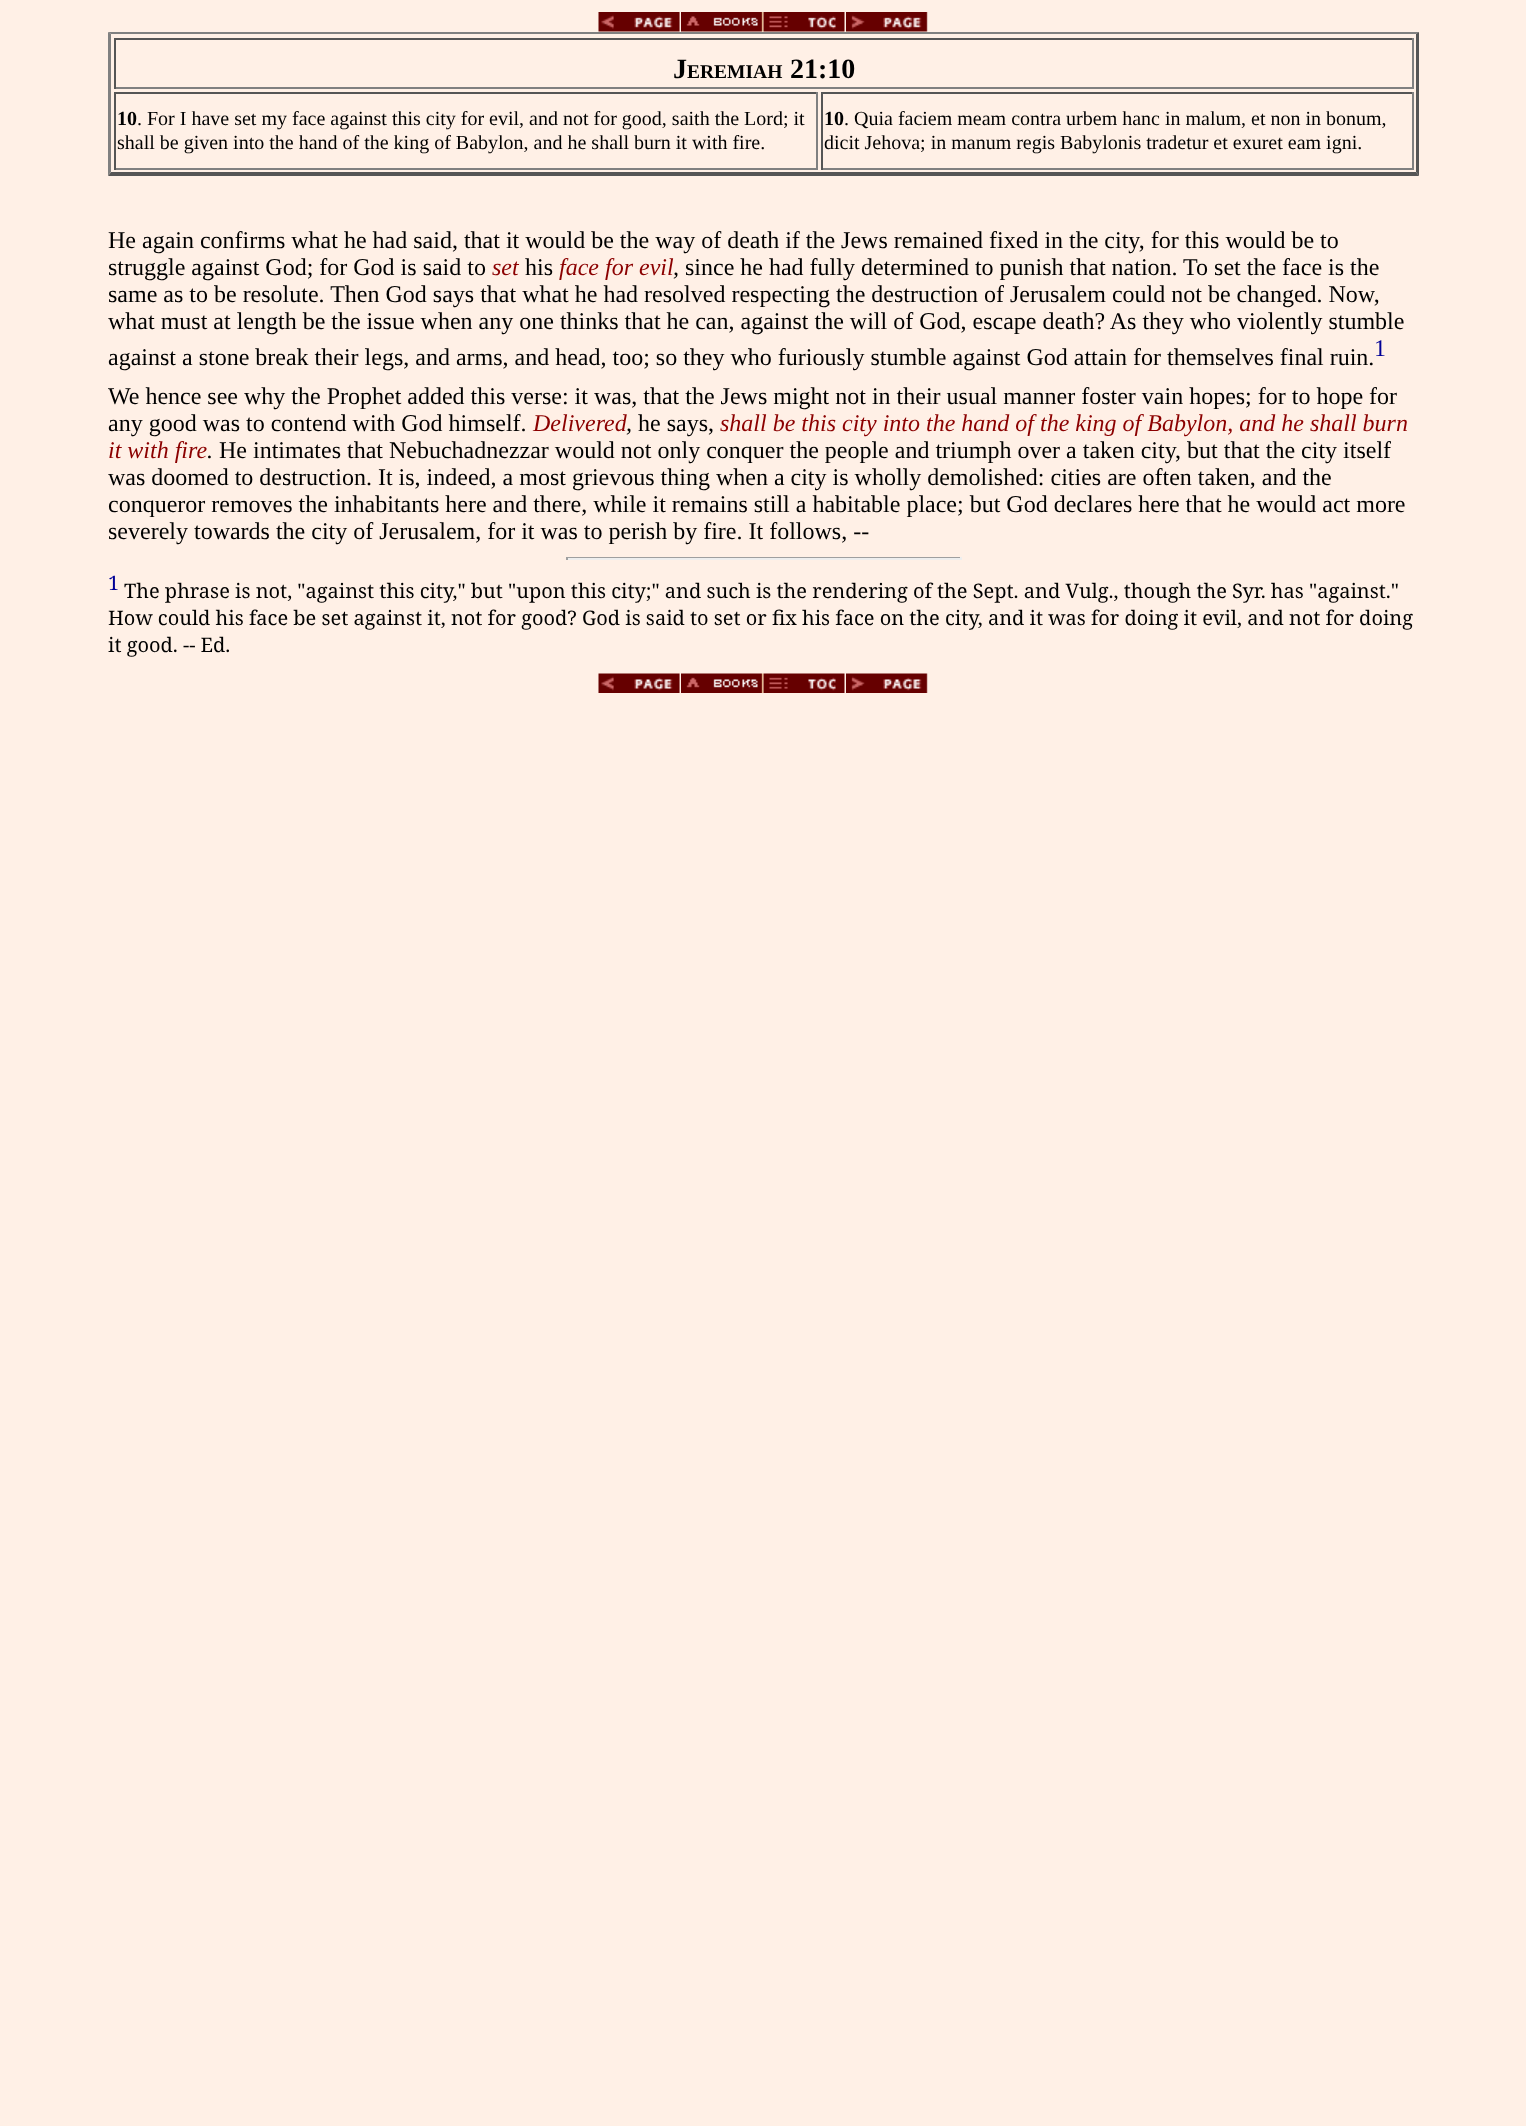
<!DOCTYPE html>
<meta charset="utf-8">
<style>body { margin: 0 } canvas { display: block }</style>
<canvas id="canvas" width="1526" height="2126"></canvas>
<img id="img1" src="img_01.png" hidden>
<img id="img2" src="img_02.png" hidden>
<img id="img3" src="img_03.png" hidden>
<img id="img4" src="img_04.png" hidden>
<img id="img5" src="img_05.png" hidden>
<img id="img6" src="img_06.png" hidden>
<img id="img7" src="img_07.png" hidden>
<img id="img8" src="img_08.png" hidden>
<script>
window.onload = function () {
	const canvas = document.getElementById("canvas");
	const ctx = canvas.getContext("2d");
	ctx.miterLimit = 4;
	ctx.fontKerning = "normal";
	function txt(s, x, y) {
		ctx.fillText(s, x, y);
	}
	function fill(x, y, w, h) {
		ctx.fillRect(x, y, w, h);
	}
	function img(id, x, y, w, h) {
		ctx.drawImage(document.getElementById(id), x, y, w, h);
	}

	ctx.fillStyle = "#FFF0E6";
	fill(0, 0, 1526, 2126);
	img("img1", 598, 12, 82, 20);
	img("img2", 681, 12, 83, 20);
	img("img3", 763, 12, 82, 20);
	img("img4", 846, 12, 82, 20);
	ctx.fillStyle = "#808080";
	ctx.beginPath();
	ctx.moveTo(108, 32);
	ctx.lineTo(1419, 32);
	ctx.lineTo(1416, 34);
	ctx.lineTo(111, 34);
	ctx.closePath();
	ctx.fill();
	ctx.fillStyle = "#555555";
	ctx.beginPath();
	ctx.moveTo(1419, 32);
	ctx.lineTo(1419, 176);
	ctx.lineTo(1416, 172);
	ctx.lineTo(1416, 34);
	ctx.closePath();
	ctx.fill();
	ctx.beginPath();
	ctx.moveTo(1419, 176);
	ctx.lineTo(108, 176);
	ctx.lineTo(111, 172);
	ctx.lineTo(1416, 172);
	ctx.closePath();
	ctx.fill();
	ctx.fillStyle = "#808080";
	ctx.beginPath();
	ctx.moveTo(108, 176);
	ctx.lineTo(108, 32);
	ctx.lineTo(111, 34);
	ctx.lineTo(111, 172);
	ctx.closePath();
	ctx.fill();
	ctx.fillStyle = "#555555";
	fill(114, 38, 1299, 2);
	ctx.fillStyle = "#808080";
	fill(1412, 38, 2, 51);
	fill(114, 87, 1299, 2);
	ctx.fillStyle = "#555555";
	fill(114, 38, 2, 51);
	fill(114, 92, 704, 2);
	ctx.fillStyle = "#808080";
	fill(816, 92, 2, 78);
	fill(114, 168, 704, 2);
	ctx.fillStyle = "#555555";
	fill(114, 92, 2, 78);
	fill(821, 92, 592, 2);
	ctx.fillStyle = "#808080";
	fill(1412, 92, 2, 78);
	fill(821, 168, 592, 2);
	ctx.fillStyle = "#555555";
	fill(821, 92, 2, 78);
	ctx.fillStyle = "#9F9F9F";
	fill(566, 557, 396, 1);
	ctx.fillStyle = "#EEEEEE";
	fill(960, 557, 2, 3);
	fill(566, 558, 396, 2);
	ctx.fillStyle = "#9F9F9F";
	fill(566, 557, 2, 3);
	img("img5", 598, 673, 82, 20);
	img("img6", 681, 673, 83, 20);
	img("img7", 763, 673, 82, 20);
	img("img8", 846, 673, 82, 20);
	ctx.font = "bold 28px Liberation Serif";
	ctx.fillStyle = "#000000";
	txt("J", 673, 78);
	ctx.font = "bold 19.5px Liberation Serif";
	txt("EREMIAH", 687, 78);
	ctx.font = "bold 28px Liberation Serif";
	txt("21:10", 790, 78);
	ctx.font = "bold 20px Liberation Serif";
	txt("10", 117, 125);
	ctx.font = "20px Liberation Serif";
	txt(". For I have set my face against this city for evil, and not for good, saith the Lord; it", 137, 125);
	txt("shall be given into the hand of the king of Babylon, and he shall burn it with fire.", 117, 149);
	ctx.font = "bold 20px Liberation Serif";
	txt("10", 824, 125);
	ctx.font = "20px Liberation Serif";
	txt(". Quia faciem meam contra urbem hanc in malum, et non in bonum,", 844, 125);
	txt("dicit Jehova; in manum regis Babylonis tradetur et exuret eam igni.", 824, 149);
	ctx.font = "24px Liberation Serif";
	txt("He again confirms what he had said, that it would be the way of death if the Jews remained fixed in the city, for this would be to", 108, 248);
	txt("struggle against God; for God is said to", 108, 275);
	ctx.font = "italic 24px Liberation Serif";
	ctx.fillStyle = "#8B0000";
	txt("set", 492, 275);
	ctx.font = "24px Liberation Serif";
	ctx.fillStyle = "#000000";
	txt("his", 525, 275);
	ctx.font = "italic 24px Liberation Serif";
	ctx.fillStyle = "#8B0000";
	txt("face for evil", 559, 275);
	ctx.fillStyle = "#000000";
	txt(",", 673, 275);
	ctx.font = "24px Liberation Serif";
	txt("since he had fully determined to punish that nation. To set the face is the", 685, 275);
	txt("same as to be resolute. Then God says that what he had resolved respecting the destruction of Jerusalem could not be changed. Now,", 108, 302);
	txt("what must at length be the issue when any one thinks that he can, against the will of God, escape death? As they who violently stumble", 108, 329);
	txt("against a stone break their legs, and arms, and head, too; so they who furiously stumble against God attain for themselves final ruin.", 108, 365);
	ctx.fillStyle = "#000096";
	txt("1", 1374, 356);
	ctx.fillStyle = "#000000";
	txt("We hence see why the Prophet added this verse: it was, that the Jews might not in their usual manner foster vain hopes; for to hope for", 108, 404);
	txt("any good was to contend with God himself.", 108, 431);
	ctx.font = "italic 24px Liberation Serif";
	ctx.fillStyle = "#8B0000";
	txt("Delivered", 533, 431);
	ctx.fillStyle = "#000000";
	txt(",", 626, 431);
	ctx.font = "24px Liberation Serif";
	txt("he says,", 638, 431);
	ctx.font = "italic 24px Liberation Serif";
	ctx.fillStyle = "#8B0000";
	txt("shall be this city into the hand of the king of Babylon, and he shall burn", 720, 431);
	txt("it with fire", 108, 458);
	ctx.fillStyle = "#000000";
	txt(".", 207, 458);
	ctx.font = "24px Liberation Serif";
	txt("He intimates that Nebuchadnezzar would not only conquer the people and triumph over a taken city, but that the city itself", 219, 458);
	txt("was doomed to destruction. It is, indeed, a most grievous thing when a city is wholly demolished: cities are often taken, and the", 108, 485);
	txt("conqueror removes the inhabitants here and there, while it remains still a habitable place; but God declares here that he would act more", 108, 512);
	txt("severely towards the city of Jerusalem, for it was to perish by fire. It follows, --", 108, 539);
	ctx.font = "20px Noto Serif";
	ctx.fillStyle = "#000096";
	txt("1", 108, 590);
	ctx.fillStyle = "#000000";
	txt("The phrase is not, \"against this city,\" but \"upon this city;\" and such is the rendering of the Sept. and Vulg., though the Syr. has \"against.\"", 124, 598);
	txt("How could his face be set against it, not for good? God is said to set or fix his face on the city, and it was for doing it evil, and not for doing", 108, 625);
	txt("it good. -- Ed.", 108, 652);
};
</script>
